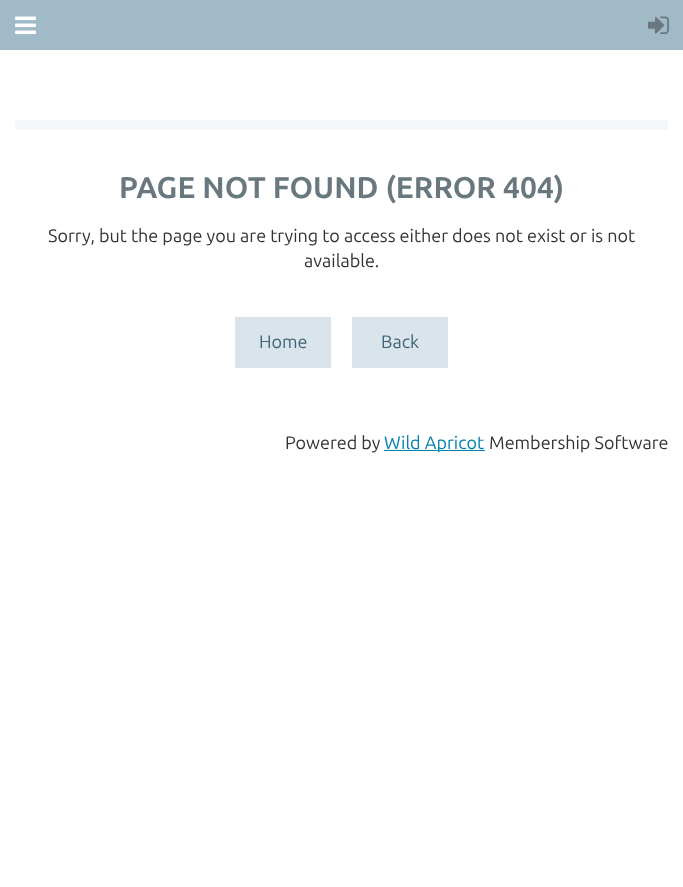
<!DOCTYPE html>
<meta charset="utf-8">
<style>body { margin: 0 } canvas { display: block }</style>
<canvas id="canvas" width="683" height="887"></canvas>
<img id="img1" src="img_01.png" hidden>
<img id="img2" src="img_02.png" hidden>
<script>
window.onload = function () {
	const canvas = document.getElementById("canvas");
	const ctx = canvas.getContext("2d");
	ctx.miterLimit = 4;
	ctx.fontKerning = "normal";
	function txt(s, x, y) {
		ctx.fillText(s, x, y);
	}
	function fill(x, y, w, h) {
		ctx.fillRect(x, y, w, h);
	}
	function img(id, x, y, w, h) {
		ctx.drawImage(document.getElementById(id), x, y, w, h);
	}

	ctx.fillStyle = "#FFFFFF";
	fill(0, 0, 683, 887);
	ctx.fillStyle = "#A0BAC7";
	fill(0, 0, 683, 50);
	img("img1", 15, 16, 21, 19);
	img("img2", 648, 16, 21, 18);
	ctx.fillStyle = "#F4F8FA";
	fill(15, 120, 653, 10);
	ctx.fillStyle = "#D9E5EB";
	fill(235, 317, 96, 51);
	fill(352, 317, 96, 51);
	ctx.fillStyle = "#0082AC";
	fill(384, 450, 101, 1);
	ctx.font = "bold 30px Ubuntu";
	ctx.fillStyle = "#69777F";
	txt("PAGE NOT FOUND (ERROR 404)", 119, 198);
	ctx.font = "18px Ubuntu";
	ctx.fillStyle = "#333333";
	txt("Sorry, but the page you are trying to access either does not exist or is not", 48, 242);
	txt("available.", 304, 267);
	ctx.fillStyle = "#3F6478";
	txt("Home", 259, 348);
	txt("Back", 381, 348);
	ctx.fillStyle = "#333333";
	txt("Powered by", 285, 449);
	ctx.fillStyle = "#0082AC";
	txt("Wild Apricot", 384, 449);
	ctx.fillStyle = "#333333";
	txt("Membership Software", 489, 449);
};
</script>
